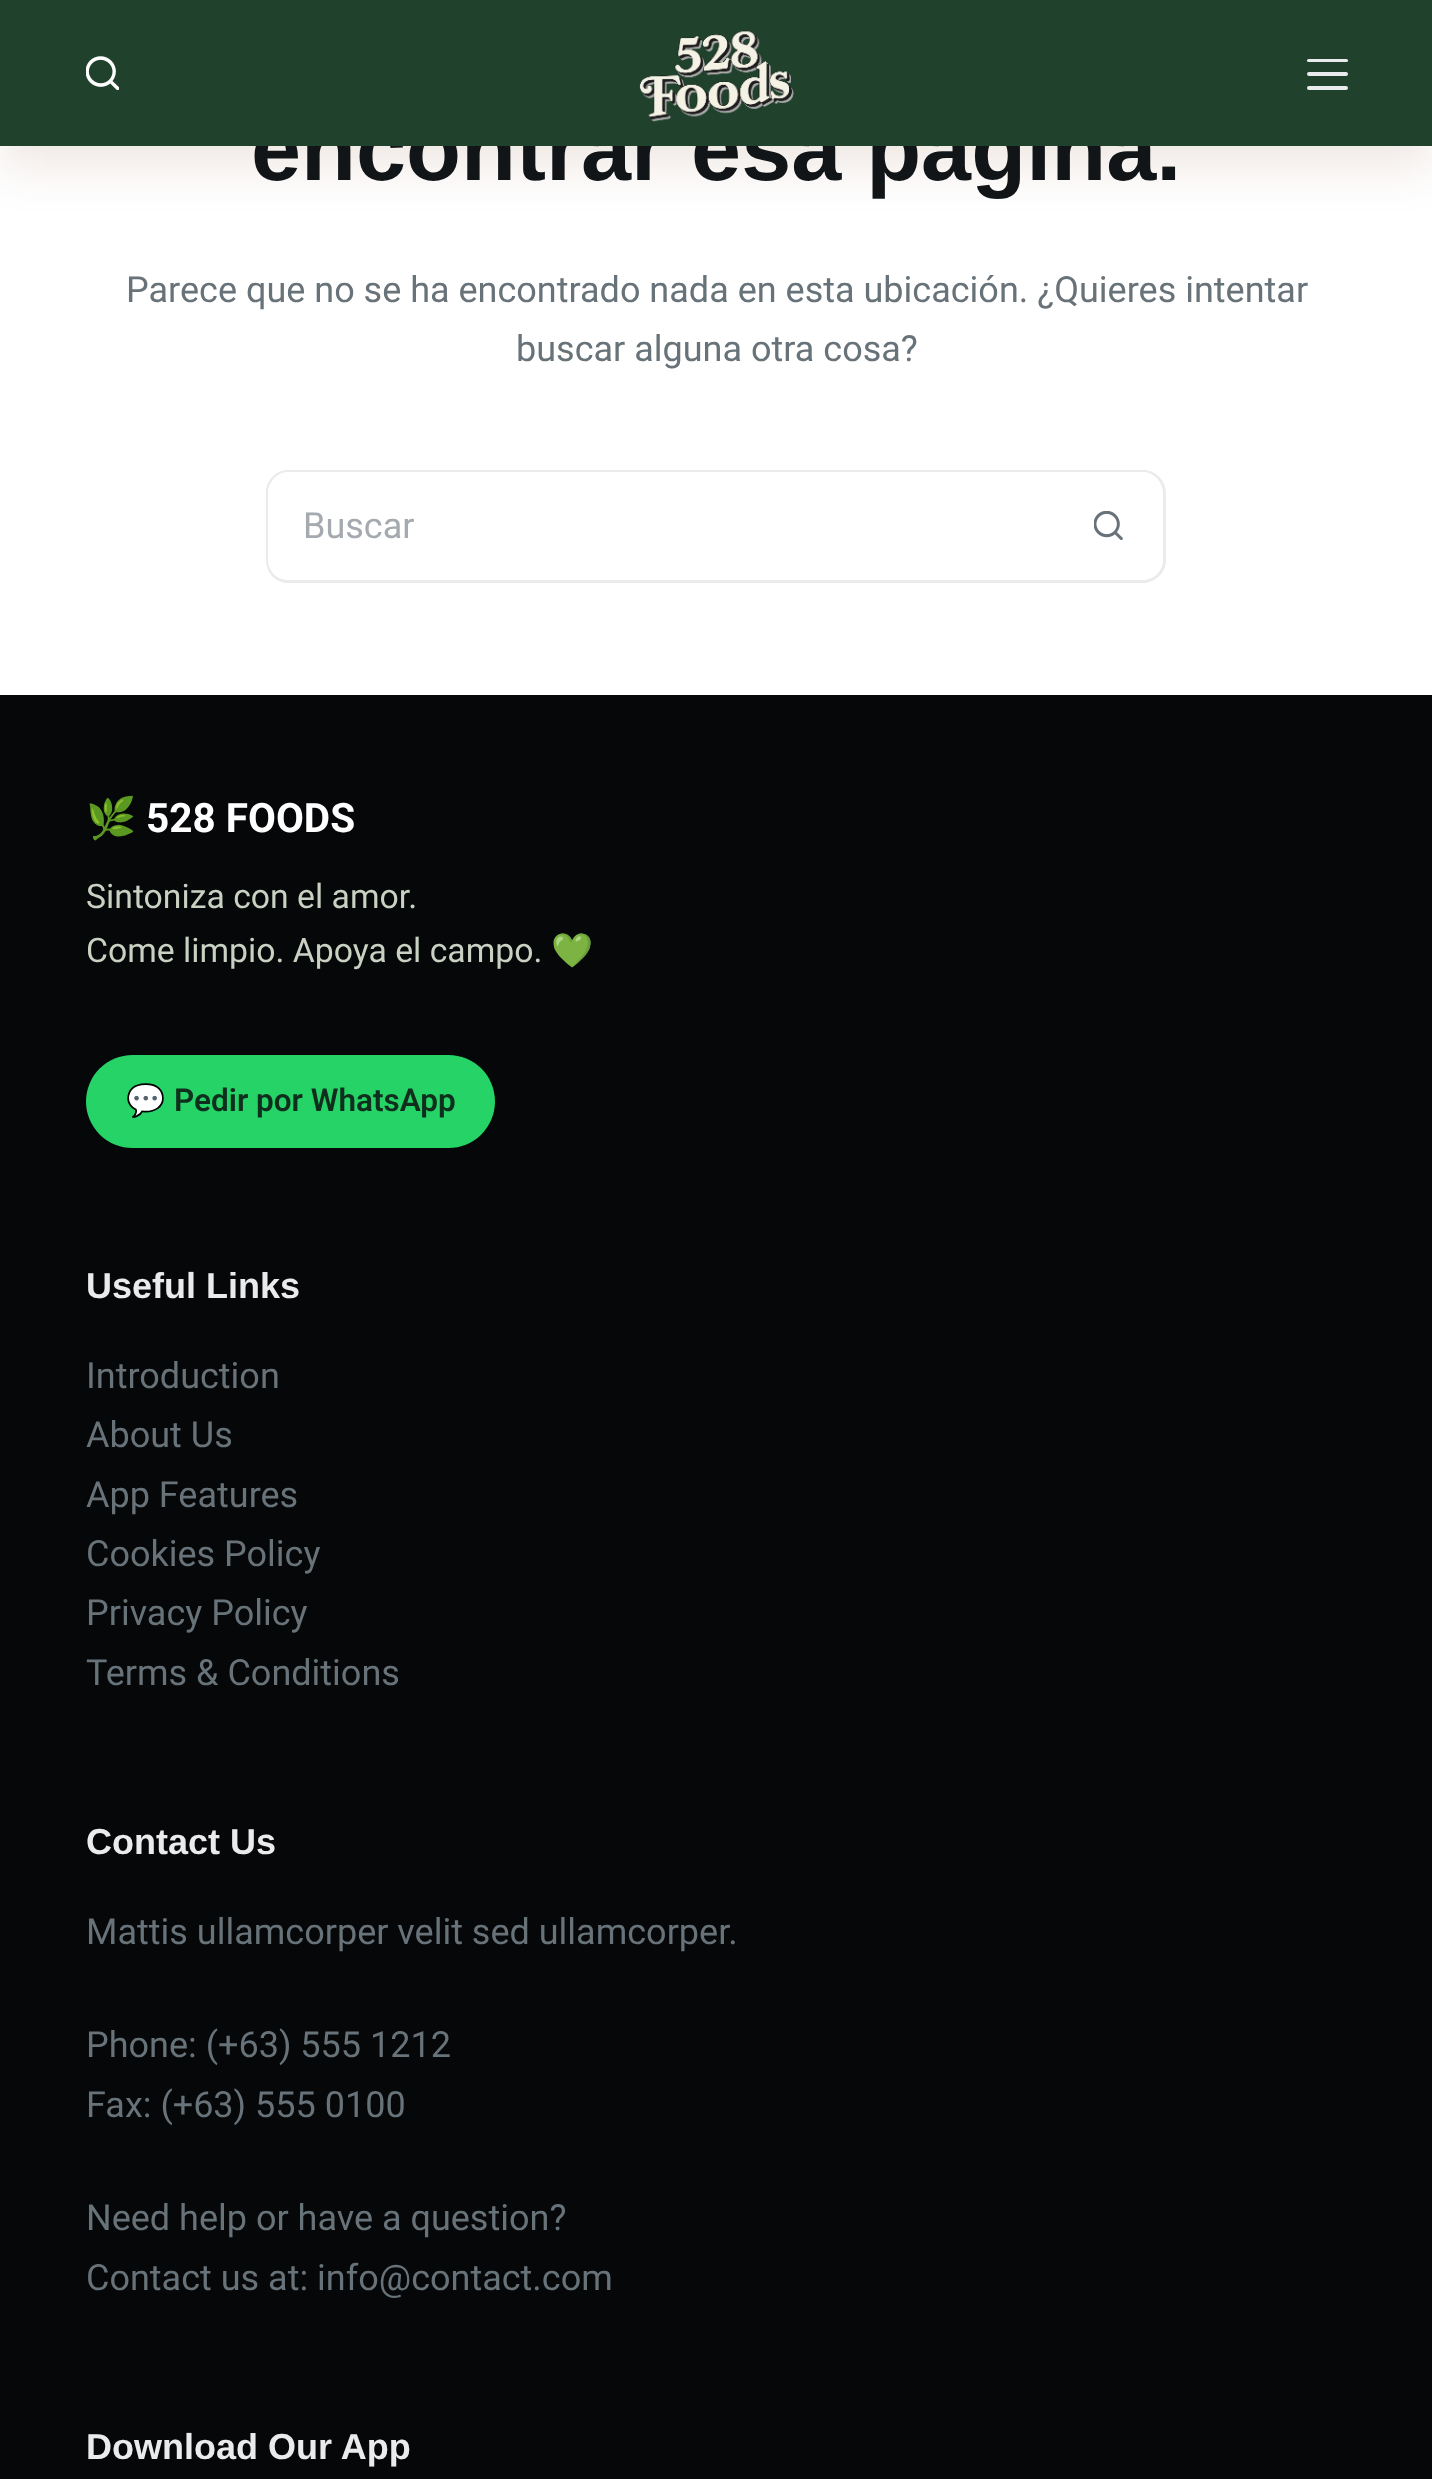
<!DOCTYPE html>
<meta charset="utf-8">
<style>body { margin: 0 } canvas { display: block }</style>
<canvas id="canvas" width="1432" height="2479"></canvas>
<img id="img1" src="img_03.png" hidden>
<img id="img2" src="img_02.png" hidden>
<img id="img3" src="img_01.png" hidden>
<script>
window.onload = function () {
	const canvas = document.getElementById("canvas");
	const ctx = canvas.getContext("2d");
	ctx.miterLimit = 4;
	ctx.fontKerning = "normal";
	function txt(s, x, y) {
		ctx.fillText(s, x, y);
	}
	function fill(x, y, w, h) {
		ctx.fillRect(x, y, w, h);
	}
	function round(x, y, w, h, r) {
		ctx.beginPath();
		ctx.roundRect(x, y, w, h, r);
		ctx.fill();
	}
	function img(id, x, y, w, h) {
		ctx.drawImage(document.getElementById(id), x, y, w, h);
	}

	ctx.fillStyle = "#FFFFFF";
	fill(0, 0, 1432, 2479);
	ctx.fillStyle = "rgba(106, 38, 1, 0.1)";
	ctx.filter = "blur(22.5px)";
	ctx.beginPath();
	ctx.rect(0, 23, 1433, 146);
	ctx.fill();
	ctx.filter = "none";
	ctx.fillStyle = "#E9EBEC";
	ctx.beginPath();
	ctx.moveTo(288, 470);
	ctx.lineTo(1053, 470);
	ctx.lineTo(1053, 583);
	ctx.lineTo(288, 583);
	ctx.bezierCurveTo(276, 583, 266, 573, 266, 560);
	ctx.lineTo(266, 493);
	ctx.bezierCurveTo(266, 480, 276, 470, 288, 470);
	ctx.closePath();
	ctx.moveTo(288, 472);
	ctx.lineTo(1053, 472);
	ctx.lineTo(1053, 580);
	ctx.lineTo(288, 580);
	ctx.bezierCurveTo(277, 580, 268, 571, 268, 560);
	ctx.lineTo(268, 493);
	ctx.bezierCurveTo(268, 482, 277, 472, 288, 472);
	ctx.closePath();
	ctx.fill("evenodd");
	ctx.beginPath();
	ctx.moveTo(1053, 470);
	ctx.lineTo(1143, 470);
	ctx.bezierCurveTo(1155, 470, 1166, 480, 1166, 493);
	ctx.lineTo(1166, 560);
	ctx.bezierCurveTo(1166, 573, 1155, 583, 1143, 583);
	ctx.lineTo(1053, 583);
	ctx.closePath();
	ctx.moveTo(1053, 472);
	ctx.lineTo(1143, 472);
	ctx.bezierCurveTo(1154, 472, 1163, 482, 1163, 493);
	ctx.lineTo(1163, 560);
	ctx.bezierCurveTo(1163, 571, 1154, 580, 1143, 580);
	ctx.lineTo(1053, 580);
	ctx.closePath();
	ctx.fill("evenodd");
	img("img1", 1094, 511, 29, 29);
	ctx.fillStyle = "#050709";
	fill(0, 695, 1432, 1784);
	ctx.fillStyle = "#25D366";
	round(86, 1055, 409, 93, 46.5);
	ctx.font = "bold 90px Liberation Sans";
	ctx.fillStyle = "#111518";
	txt("encontrar esa página.", 251, 180);
	ctx.fillStyle = "#20422C";
	fill(0, 0, 1432, 146);
	ctx.fillStyle = "#E9EBEC";
	round(1307, 86, 41, 4, 2);
	round(1307, 72, 41, 4, 2);
	round(1307, 59, 41, 3, 1.5);
	img("img2", 639, 30, 155, 92);
	img("img3", 86, 56, 33, 34);
	ctx.font = "36px Roboto";
	ctx.fillStyle = "#687279";
	txt("Parece que no se ha encontrado nada en esta ubicación. ¿Quieres intentar", 126, 302);
	txt("buscar alguna otra cosa?", 516, 361);
	ctx.fillStyle = "#A4AAAF";
	txt("Buscar", 303, 538);
	ctx.font = "bold 40.5px Noto Color Emoji";
	ctx.fillStyle = "#FFFFFF";
	txt("🌿", 86, 832);
	ctx.font = "bold 40.5px Roboto";
	txt("528 FOODS", 146, 832);
	ctx.font = "33.75px Roboto";
	ctx.fillStyle = "#C8D1C2";
	txt("Sintoniza con el amor.", 86, 908);
	txt("Come limpio. Apoya el campo.", 86, 962);
	ctx.font = "33.75px Noto Color Emoji";
	txt("💚", 551, 962);
	ctx.font = "bold 31.5px Noto Color Emoji";
	ctx.fillStyle = "#0F2E1D";
	txt("💬", 126, 1111);
	ctx.font = "600 31.5px Roboto";
	txt("Pedir por WhatsApp", 174, 1111);
	ctx.font = "bold 36px Liberation Sans";
	ctx.fillStyle = "#E9EBEC";
	txt("Useful Links", 86, 1298);
	ctx.font = "36px Roboto";
	ctx.fillStyle = "#687279";
	txt("Introduction", 86, 1388);
	txt("About Us", 86, 1447);
	txt("App Features", 86, 1507);
	txt("Cookies Policy", 86, 1566);
	txt("Privacy Policy", 86, 1625);
	txt("Terms & Conditions", 86, 1685);
	ctx.font = "bold 36px Liberation Sans";
	ctx.fillStyle = "#E9EBEC";
	txt("Contact Us", 86, 1854);
	ctx.font = "36px Roboto";
	ctx.fillStyle = "#687279";
	txt("Mattis ullamcorper velit sed ullamcorper.", 86, 1944);
	txt("Phone: (+63) 555 1212", 86, 2057);
	txt("Fax: (+63) 555 0100", 86, 2117);
	txt("Need help or have a question?", 86, 2230);
	txt("Contact us at: info@contact.com", 86, 2290);
	ctx.font = "bold 36px Liberation Sans";
	ctx.fillStyle = "#E9EBEC";
	txt("Download Our App", 86, 2459);
};
</script>
